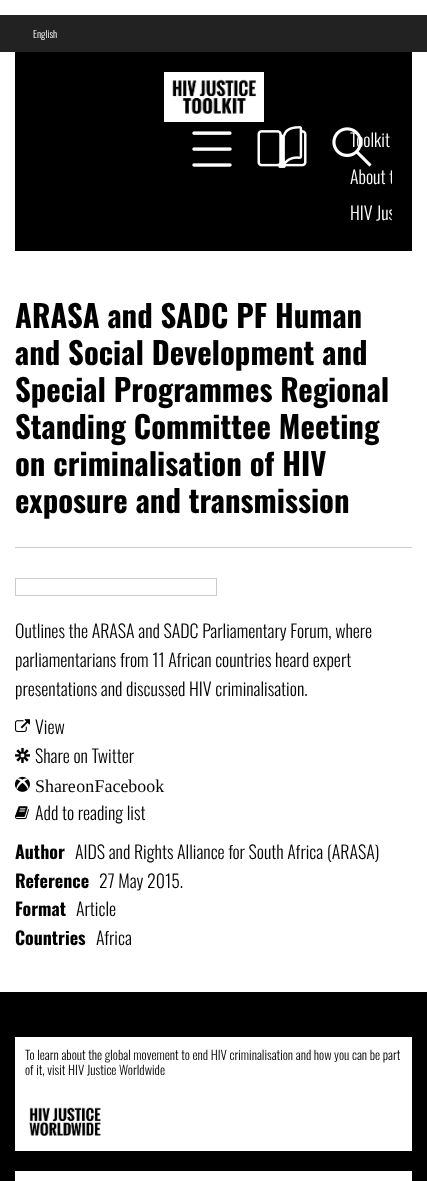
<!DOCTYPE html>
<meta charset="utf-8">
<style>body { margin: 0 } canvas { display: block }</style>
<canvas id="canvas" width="427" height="1181"></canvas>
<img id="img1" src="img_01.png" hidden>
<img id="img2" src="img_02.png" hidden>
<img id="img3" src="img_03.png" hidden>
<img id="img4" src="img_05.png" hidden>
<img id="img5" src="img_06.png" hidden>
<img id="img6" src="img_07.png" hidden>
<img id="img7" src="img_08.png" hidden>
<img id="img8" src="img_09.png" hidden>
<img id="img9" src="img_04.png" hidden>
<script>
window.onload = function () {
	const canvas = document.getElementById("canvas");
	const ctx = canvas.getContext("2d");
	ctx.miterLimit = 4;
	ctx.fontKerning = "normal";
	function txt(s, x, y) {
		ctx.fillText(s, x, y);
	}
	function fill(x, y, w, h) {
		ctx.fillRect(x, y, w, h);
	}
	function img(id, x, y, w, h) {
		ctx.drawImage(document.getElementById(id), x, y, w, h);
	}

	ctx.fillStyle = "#FFFFFF";
	fill(0, 0, 427, 1181);
	ctx.fillStyle = "#222222";
	fill(0, 15, 427, 37);
	ctx.fillStyle = "#000000";
	fill(15, 52, 397, 199);
	img("img1", 164, 72, 100, 50);
	img("img2", 192, 131, 40, 36);
	img("img3", 257, 126, 50, 42);
	ctx.fillStyle = "#CCCCCC";
	fill(15, 547, 397, 1);
	ctx.strokeStyle = "#CCCCCC";
	ctx.strokeRect(15.5, 578.5, 201, 17);
	img("img4", 15, 719, 15, 13);
	img("img5", 15, 747, 15, 16);
	img("img6", 15, 776, 15, 16);
	img("img7", 15, 806, 14, 14);
	ctx.fillStyle = "#000000";
	fill(0, 992, 427, 189);
	ctx.fillStyle = "#FFFFFF";
	fill(15, 1037, 397, 114);
	img("img8", 29, 1107, 72, 29);
	fill(15, 1171, 397, 10);
	ctx.font = "300 10px Oswald";
	txt("English", 33, 38);
	ctx.font = "300 17.9px Oswald";
	txt("Toolkit", 350, 147);
	img("img9", 332, 127, 40, 40);
	ctx.save();
	ctx.beginPath();
	ctx.rect(335, 122, 57, 109);
	ctx.clip();
	txt("About t", 350, 184);
	txt("HIV Jus", 350, 220);
	ctx.restore();
	ctx.font = "bold 30.75px Oswald";
	ctx.fillStyle = "#000000";
	txt("ARASA and SADC PF Human", 15, 328);
	txt("and Social Development and", 15, 365);
	txt("Special Programmes Regional", 15, 402);
	txt("Standing Committee Meeting", 15, 439);
	txt("on criminalisation of HIV", 15, 476);
	txt("exposure and transmission", 15, 513);
	ctx.font = "300 17.9px Oswald";
	txt("Outlines the ARASA and SADC Parliamentary Forum, where", 15, 638);
	txt("parliamentarians from 11 African countries heard expert", 15, 667);
	txt("presentations and discussed HIV criminalisation.", 15, 696);
	txt("View", 35, 734);
	txt("Share on Twitter", 35, 763);
	ctx.wordSpacing = "-4px";
	ctx.font = "17.9px Liberation Serif";
	txt("Share on Facebook", 35, 792);
	ctx.wordSpacing = "0px";
	ctx.font = "300 17.9px Oswald";
	txt("Add to reading list", 35, 820);
	ctx.font = "bold 17.9px Oswald";
	txt("Author", 15, 859);
	ctx.font = "300 17.9px Oswald";
	txt("AIDS and Rights Alliance for South Africa (ARASA)", 75, 859);
	ctx.font = "bold 17.9px Oswald";
	txt("Reference", 15, 888);
	ctx.font = "300 17.9px Oswald";
	txt("27 May 2015.", 99, 888);
	ctx.font = "bold 17.9px Oswald";
	txt("Format", 15, 916);
	ctx.font = "300 17.9px Oswald";
	txt("Article", 76, 916);
	ctx.font = "bold 17.9px Oswald";
	txt("Countries", 15, 945);
	ctx.font = "300 17.9px Oswald";
	txt("Africa", 96, 945);
	ctx.font = "300 12.8px Oswald";
	txt("To learn about the global movement to end HIV criminalisation and how you can be part", 25, 1060);
	txt("of it, visit HIV Justice Worldwide", 25, 1075);
};
</script>
